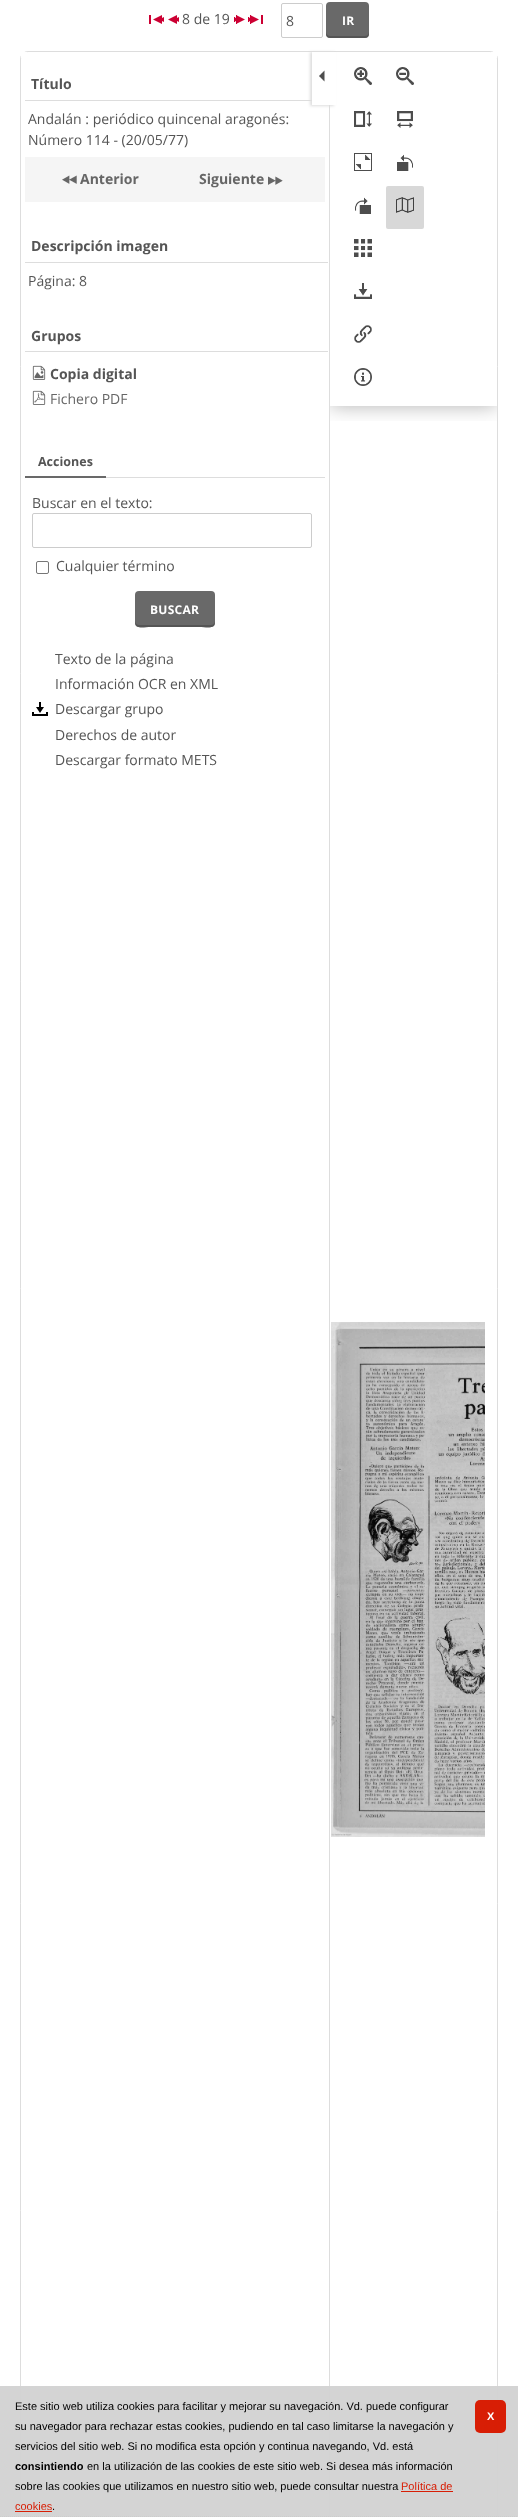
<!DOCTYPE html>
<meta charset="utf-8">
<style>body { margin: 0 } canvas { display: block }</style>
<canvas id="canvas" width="518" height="2517"></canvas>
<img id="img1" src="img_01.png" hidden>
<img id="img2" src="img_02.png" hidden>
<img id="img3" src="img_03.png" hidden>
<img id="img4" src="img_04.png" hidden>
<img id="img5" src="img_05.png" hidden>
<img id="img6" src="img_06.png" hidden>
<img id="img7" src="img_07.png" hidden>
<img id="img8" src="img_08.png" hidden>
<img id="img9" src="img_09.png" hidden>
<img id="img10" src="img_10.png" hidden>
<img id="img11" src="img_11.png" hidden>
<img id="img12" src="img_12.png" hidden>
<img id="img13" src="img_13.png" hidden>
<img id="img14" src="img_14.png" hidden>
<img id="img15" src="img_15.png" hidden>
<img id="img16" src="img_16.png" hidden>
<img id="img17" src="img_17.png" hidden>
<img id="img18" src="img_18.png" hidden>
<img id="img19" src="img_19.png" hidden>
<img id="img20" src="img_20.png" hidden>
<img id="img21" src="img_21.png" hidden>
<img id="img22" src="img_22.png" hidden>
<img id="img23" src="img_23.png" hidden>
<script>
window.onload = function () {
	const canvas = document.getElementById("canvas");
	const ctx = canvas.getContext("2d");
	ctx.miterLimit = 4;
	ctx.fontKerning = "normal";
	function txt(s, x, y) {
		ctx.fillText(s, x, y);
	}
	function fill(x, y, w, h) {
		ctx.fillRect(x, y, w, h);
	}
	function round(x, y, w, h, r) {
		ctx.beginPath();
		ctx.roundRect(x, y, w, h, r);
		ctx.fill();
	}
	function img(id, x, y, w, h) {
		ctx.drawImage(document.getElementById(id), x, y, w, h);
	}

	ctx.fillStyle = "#FFFFFF";
	fill(0, 0, 518, 2517);
	img("img1", 149, 15, 15, 9);
	img("img2", 168, 15, 11, 9);
	img("img3", 234, 15, 11, 9);
	img("img4", 248, 15, 15, 9);
	ctx.beginPath();
	ctx.roundRect(281.5, 3.5, 41, 34, 1.5);
	ctx.strokeStyle = "#CCCCCC";
	ctx.stroke();
	ctx.fillStyle = "#696969";
	round(326, 2, 43, 36, 4);
	ctx.fillStyle = "#555555";
	ctx.beginPath();
	ctx.moveTo(326, 32);
	ctx.bezierCurveTo(326, 39, 329, 38, 336, 38);
	ctx.lineTo(359, 38);
	ctx.bezierCurveTo(366, 38, 369, 39, 369, 32);
	ctx.bezierCurveTo(369, 34, 367, 36, 365, 36);
	ctx.lineTo(330, 36);
	ctx.bezierCurveTo(328, 36, 326, 34, 326, 32);
	ctx.closePath();
	ctx.fill();
	ctx.beginPath();
	ctx.roundRect(20.5, 51.5, 477, 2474, 7.5);
	ctx.strokeStyle = "#DDDDDD";
	ctx.stroke();
	ctx.fillStyle = "#FFFFFF";
	fill(21, 52, 6, 6);
	ctx.fillStyle = "#DDDDDD";
	fill(329, 105, 1, 2412);
	fill(25, 100, 287, 1);
	ctx.fillStyle = "#F5F5F5";
	fill(25, 157, 300, 45);
	img("img5", 62, 175, 15, 9);
	img("img6", 268, 176, 15, 9);
	ctx.fillStyle = "#DDDDDD";
	fill(25, 262, 303, 1);
	fill(25, 351, 303, 1);
	img("img7", 32, 365, 14, 15);
	img("img8", 32, 390, 14, 15);
	fill(106, 477, 219, 1);
	ctx.fillStyle = "#696969";
	fill(25, 476, 81, 2);
	ctx.beginPath();
	ctx.roundRect(32.5, 513.5, 279, 34, 1.5);
	ctx.strokeStyle = "#CCCCCC";
	ctx.stroke();
	ctx.beginPath();
	ctx.roundRect(36.5, 561.5, 12, 12, 1.5);
	ctx.strokeStyle = "#767676";
	ctx.stroke();
	round(135, 591, 80, 36, 4);
	ctx.fillStyle = "#555555";
	ctx.beginPath();
	ctx.moveTo(135, 621);
	ctx.bezierCurveTo(135, 630, 143, 627, 151, 627);
	ctx.lineTo(199, 627);
	ctx.bezierCurveTo(207, 627, 215, 630, 215, 621);
	ctx.bezierCurveTo(215, 623, 213, 625, 211, 625);
	ctx.lineTo(139, 625);
	ctx.bezierCurveTo(137, 625, 135, 623, 135, 621);
	ctx.closePath();
	ctx.fill();
	img("img9", 32, 702, 16, 14);
	ctx.fillStyle = "#DDDDDD";
	ctx.filter = "blur(1.5px)";
	ctx.beginPath();
	ctx.rect(310, 52, 24, 54);
	ctx.fill();
	ctx.filter = "none";
	ctx.fillStyle = "#FFFFFF";
	fill(312, 52, 24, 53);
	img("img10", 319, 70, 6, 12);
	fill(491, 52, 6, 6);
	ctx.save();
	ctx.beginPath();
	ctx.rect(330, 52, 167, 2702);
	ctx.clip();
	ctx.beginPath();
	ctx.rect(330, 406, 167, 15);
	ctx.clip();
	ctx.fillStyle = "rgba(0, 0, 0, 0.3)";
	ctx.filter = "blur(10px)";
	ctx.beginPath();
	ctx.rect(330, 52, 167, 354);
	ctx.fill();
	ctx.filter = "none";
	ctx.restore();
	img("img11", 354, 67, 18, 18);
	img("img12", 396, 67, 18, 18);
	img("img13", 354, 111, 18, 16);
	img("img14", 397, 111, 16, 17);
	img("img15", 354, 153, 18, 18);
	img("img16", 397, 154, 16, 17);
	img("img17", 355, 197, 16, 17);
	ctx.fillStyle = "#D8D8D8";
	round(386, 186, 38, 43, 2);
	img("img18", 396, 197, 18, 16);
	img("img19", 354, 239, 18, 18);
	img("img20", 354, 283, 18, 16);
	img("img21", 354, 325, 18, 18);
	img("img22", 354, 368, 18, 18);
	img("img23", 331, 1322, 154, 515);
	ctx.fillStyle = "rgba(210, 210, 210, 0.95)";
	fill(0, 2386, 518, 131);
	ctx.beginPath();
	ctx.moveTo(0, 2516.5);
	ctx.lineTo(518, 2516.5);
	ctx.strokeStyle = "#CCCCCC";
	ctx.setLineDash([1, 1]);
	ctx.stroke();
	ctx.fillStyle = "#D81E05";
	fill(401, 2491, 52, 1);
	fill(15, 2511, 37, 1);
	round(475, 2400, 31, 33, 5);
	ctx.font = "14px Open Sans";
	ctx.fillStyle = "#555555";
	txt("8 de 19", 182, 24);
	txt("8", 286, 26);
	ctx.letterSpacing = "0.25px";
	ctx.font = "bold 12px Open Sans";
	ctx.fillStyle = "#FFFFFF";
	txt("IR", 342, 25);
	ctx.letterSpacing = "0px";
	ctx.font = "bold 14px Open Sans";
	ctx.fillStyle = "#555555";
	txt("Título", 31, 89);
	ctx.font = "14px Open Sans";
	txt("Andalán : periódico quincenal aragonés:", 28, 124);
	txt("Número 114 - (20/05/77)", 28, 145);
	ctx.font = "bold 14px Open Sans";
	ctx.fillStyle = "#666666";
	txt("Anterior", 80, 184);
	txt("Siguiente", 199, 184);
	ctx.fillStyle = "#555555";
	txt("Descripción imagen", 31, 251);
	ctx.font = "14px Open Sans";
	txt("Página: 8", 28, 286);
	ctx.font = "bold 14px Open Sans";
	txt("Grupos", 31, 341);
	txt("Copia digital", 50, 379);
	ctx.font = "14px Open Sans";
	ctx.fillStyle = "#666666";
	txt("Fichero PDF", 50, 404);
	ctx.font = "bold 12.5px Open Sans";
	ctx.fillStyle = "#555555";
	txt("Acciones", 38, 466);
	ctx.font = "14px Open Sans";
	txt("Buscar en el texto:", 32, 508);
	txt("Cualquier término", 56, 571);
	ctx.letterSpacing = "0.25px";
	ctx.font = "bold 12px Open Sans";
	ctx.fillStyle = "#FFFFFF";
	txt("BUSCAR", 150, 614);
	ctx.letterSpacing = "0px";
	ctx.font = "14px Open Sans";
	ctx.fillStyle = "#555555";
	txt("Texto de la página", 55, 664);
	txt("Información OCR en XML", 55, 689);
	txt("Descargar grupo", 55, 714);
	txt("Derechos de autor", 55, 740);
	txt("Descargar formato METS", 55, 765);
	ctx.font = "11px Liberation Sans";
	ctx.fillStyle = "#000000";
	txt("Este sitio web utiliza cookies para facilitar y mejorar su navegación. Vd. puede configurar", 15, 2410);
	txt("su navegador para rechazar estas cookies, pudiendo en tal caso limitarse la navegación y", 15, 2430);
	txt("servicios del sitio web. Si no modifica esta opción y continua navegando, Vd. está", 15, 2450);
	ctx.font = "bold 11px Liberation Sans";
	txt("consintiendo", 15, 2470);
	ctx.font = "11px Liberation Sans";
	txt("en la utilización de las cookies de este sitio web. Si desea más información", 87, 2470);
	txt("sobre las cookies que utilizamos en nuestro sitio web, puede consultar nuestra", 15, 2490);
	ctx.fillStyle = "#D81E05";
	txt("Política de", 401, 2490);
	txt("cookies", 15, 2510);
	ctx.fillStyle = "#000000";
	txt(".", 52, 2510);
	ctx.letterSpacing = "-1px";
	ctx.font = "bold 11px Liberation Sans";
	ctx.fillStyle = "#FFFFFF";
	txt("X", 487, 2420);
};
</script>
